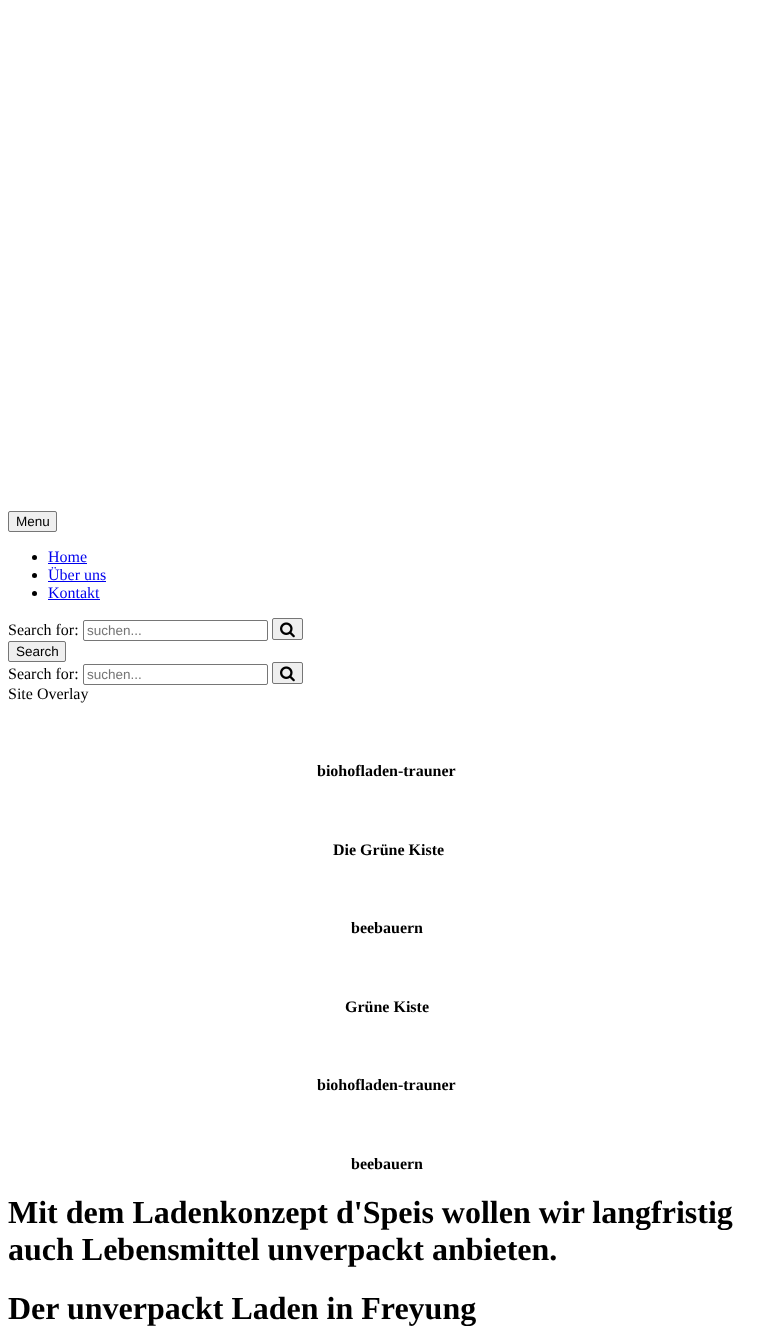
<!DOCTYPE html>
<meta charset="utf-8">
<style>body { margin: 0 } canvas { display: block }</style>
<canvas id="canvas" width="773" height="1339"></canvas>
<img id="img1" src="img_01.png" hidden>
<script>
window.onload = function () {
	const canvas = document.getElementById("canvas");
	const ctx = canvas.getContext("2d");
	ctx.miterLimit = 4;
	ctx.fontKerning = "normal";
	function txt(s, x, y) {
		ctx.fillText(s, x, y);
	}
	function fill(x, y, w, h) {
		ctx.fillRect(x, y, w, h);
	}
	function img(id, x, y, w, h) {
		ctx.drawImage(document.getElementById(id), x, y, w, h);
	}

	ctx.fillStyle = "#FFFFFF";
	fill(0, 0, 773, 1339);
	ctx.fillStyle = "#EFEFEF";
	ctx.beginPath();
	ctx.roundRect(8.5, 511.5, 48, 20, 1.5);
	ctx.fill();
	ctx.strokeStyle = "#767676";
	ctx.stroke();
	ctx.fillStyle = "#000000";
	ctx.beginPath();
	ctx.arc(34.5, 557.5, 2.5, 0, Math.PI * 2);
	ctx.fill();
	ctx.fillStyle = "#0000EE";
	fill(48, 563, 39, 1);
	ctx.fillStyle = "#000000";
	ctx.beginPath();
	ctx.arc(34.5, 575.5, 2.5, 0, Math.PI * 2);
	ctx.fill();
	ctx.fillStyle = "#0000EE";
	fill(48, 581, 58, 1);
	ctx.fillStyle = "#000000";
	ctx.beginPath();
	ctx.arc(34.5, 593.5, 2.5, 0, Math.PI * 2);
	ctx.fill();
	ctx.fillStyle = "#0000EE";
	fill(48, 599, 52, 1);
	ctx.beginPath();
	ctx.roundRect(83.5, 620.5, 184, 20, 1.5);
	ctx.stroke();
	ctx.fillStyle = "#EFEFEF";
	ctx.beginPath();
	ctx.roundRect(272.5, 618.5, 30, 21, 1.5);
	ctx.fill();
	ctx.stroke();
	img("img1", 280, 622, 15, 16);
	ctx.beginPath();
	ctx.roundRect(8.5, 641.5, 57, 20, 1.5);
	ctx.fill();
	ctx.stroke();
	ctx.beginPath();
	ctx.roundRect(83.5, 664.5, 184, 20, 1.5);
	ctx.stroke();
	ctx.beginPath();
	ctx.roundRect(272.5, 662.5, 30, 21, 1.5);
	ctx.fill();
	ctx.stroke();
	img("img1", 280, 666, 15, 16);
	ctx.font = "13.5px Liberation Sans";
	ctx.fillStyle = "#000000";
	txt("Menu", 16, 526);
	ctx.font = "16px Liberation Serif";
	ctx.fillStyle = "#0000EE";
	txt("Home", 48, 562);
	txt("Über uns", 48, 580);
	txt("Kontakt", 48, 598);
	ctx.fillStyle = "#000000";
	txt("Search for:", 8, 635);
	ctx.font = "13.5px Liberation Sans";
	ctx.fillStyle = "#757575";
	txt("suchen...", 87, 635);
	ctx.fillStyle = "#000000";
	txt("Search", 16, 656);
	ctx.font = "16px Liberation Serif";
	txt("Search for:", 8, 679);
	ctx.font = "13.5px Liberation Sans";
	ctx.fillStyle = "#757575";
	txt("suchen...", 87, 679);
	ctx.font = "16px Liberation Serif";
	ctx.fillStyle = "#000000";
	txt("Site Overlay", 8, 699);
	ctx.font = "bold 16px Liberation Serif";
	txt("biohofladen-trauner", 317, 776);
	txt("Die Grüne Kiste", 333, 855);
	txt("beebauern", 351, 933);
	txt("Grüne Kiste", 345, 1012);
	txt("biohofladen-trauner", 317, 1090);
	txt("beebauern", 351, 1169);
	ctx.font = "bold 32px Liberation Serif";
	txt("Mit dem Ladenkonzept d'Speis wollen wir langfristig", 8, 1223);
	txt("auch Lebensmittel unverpackt anbieten.", 8, 1260);
	txt("Der unverpackt Laden in Freyung", 8, 1319);
};
</script>
